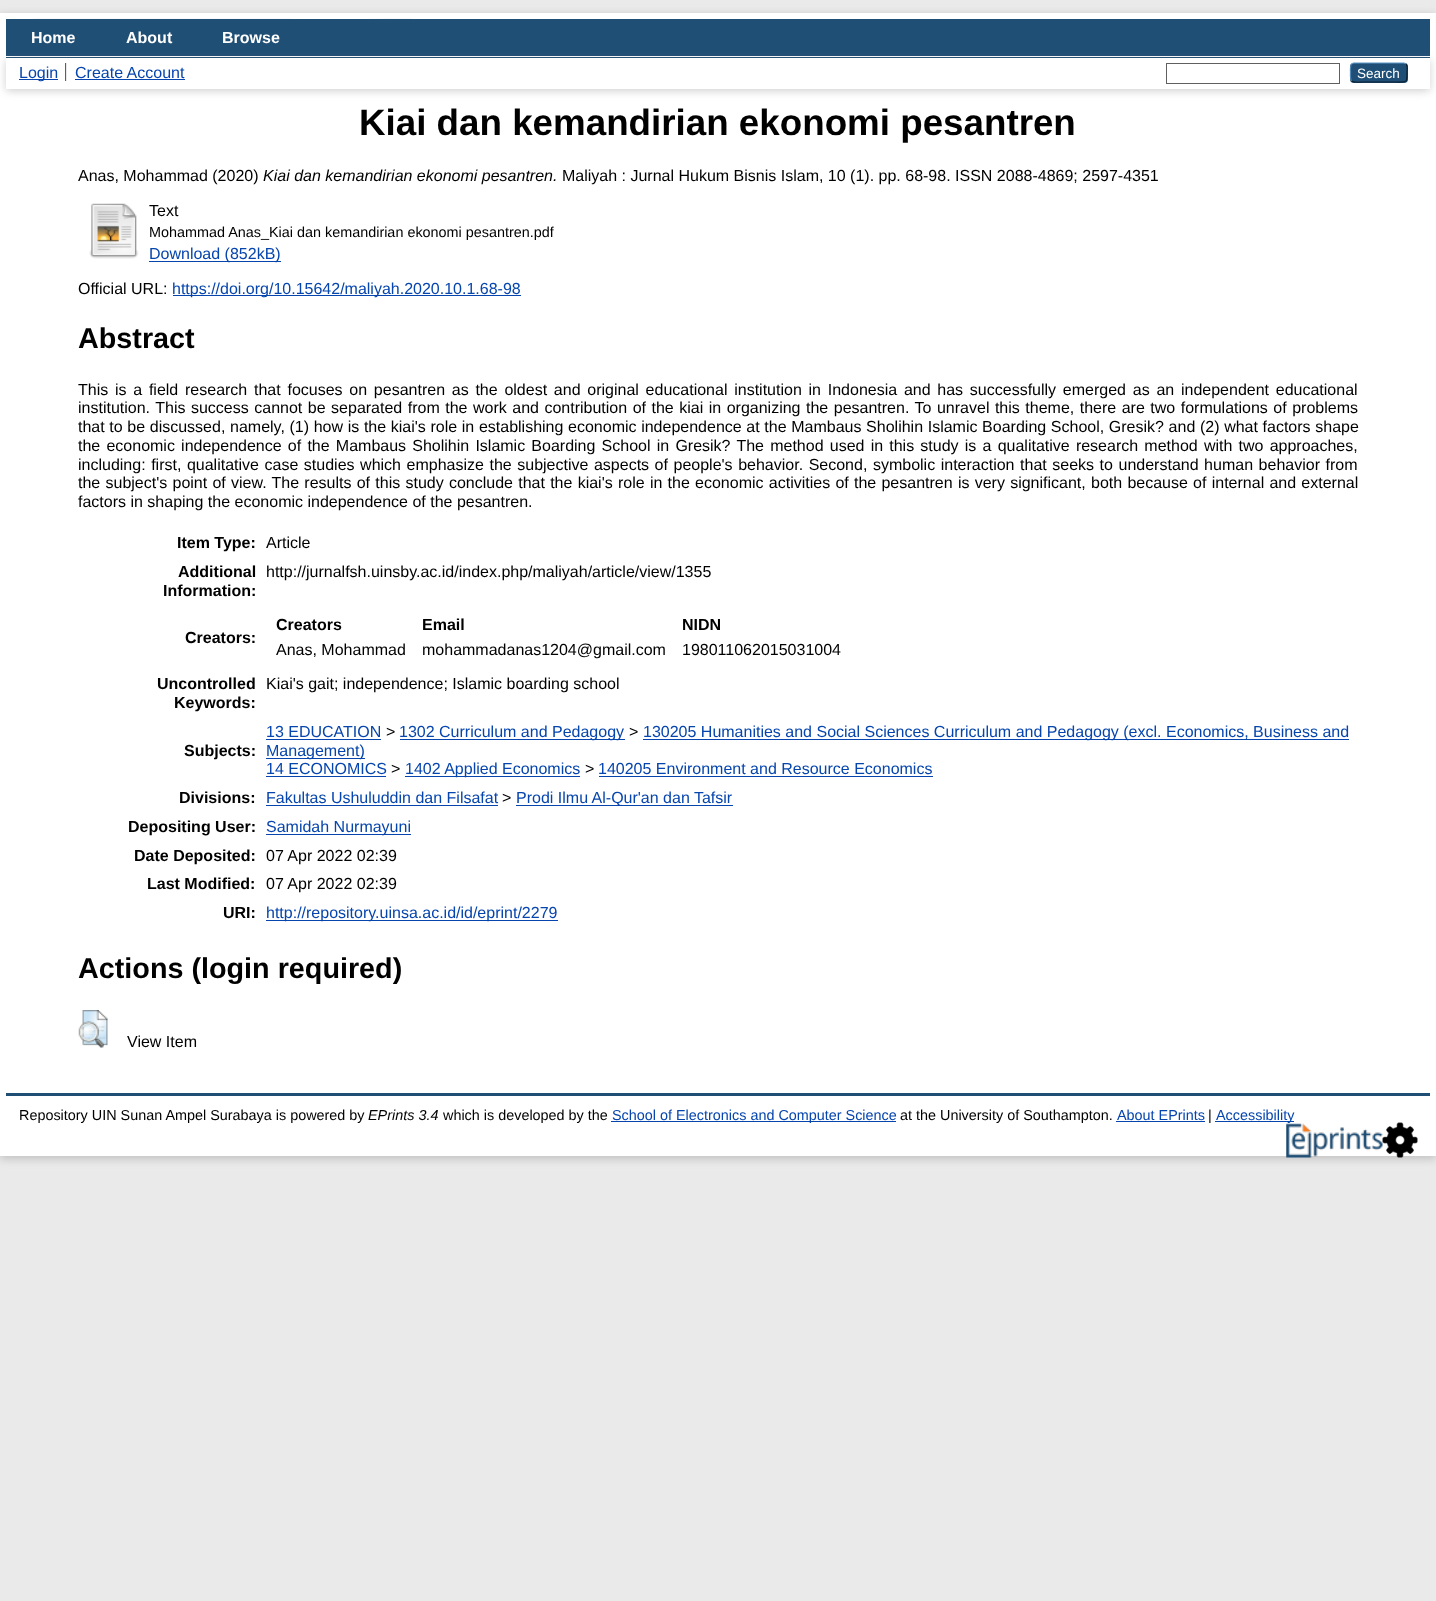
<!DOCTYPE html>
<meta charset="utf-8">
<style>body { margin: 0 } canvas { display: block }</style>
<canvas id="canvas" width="1436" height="1601"></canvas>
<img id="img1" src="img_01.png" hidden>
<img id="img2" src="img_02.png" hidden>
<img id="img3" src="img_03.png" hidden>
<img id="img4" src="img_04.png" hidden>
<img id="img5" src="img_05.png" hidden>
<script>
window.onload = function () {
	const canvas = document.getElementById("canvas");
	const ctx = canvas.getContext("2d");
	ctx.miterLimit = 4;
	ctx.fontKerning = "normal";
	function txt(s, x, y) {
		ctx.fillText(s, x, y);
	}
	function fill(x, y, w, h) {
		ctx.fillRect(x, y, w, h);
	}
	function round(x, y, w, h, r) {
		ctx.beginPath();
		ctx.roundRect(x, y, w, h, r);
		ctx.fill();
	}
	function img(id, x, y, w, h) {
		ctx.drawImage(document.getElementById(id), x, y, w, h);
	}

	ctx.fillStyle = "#EAEAEA";
	fill(0, 0, 1436, 1601);
	ctx.fillStyle = "rgba(100, 100, 100, 0.3)";
	ctx.filter = "blur(4px)";
	ctx.beginPath();
	ctx.rect(0, 15, 1436, 1144);
	ctx.fill();
	ctx.filter = "none";
	ctx.fillStyle = "#FFFFFF";
	fill(0, 13, 1436, 1143);
	img("img1", 33, 18, 379, 1);
	ctx.fillStyle = "#204F76";
	fill(6, 19, 1424, 39);
	ctx.fillStyle = "#FFFFFF";
	fill(6, 56, 1424, 1);
	ctx.fillStyle = "rgba(100, 100, 100, 0.3)";
	ctx.filter = "blur(4px)";
	ctx.beginPath();
	ctx.rect(6, 60, 1424, 31);
	ctx.fill();
	ctx.filter = "none";
	ctx.fillStyle = "#FFFFFF";
	fill(6, 58, 1424, 31);
	ctx.fillStyle = "#606060";
	fill(65, 63, 1, 18);
	ctx.fillStyle = "#0645AD";
	fill(19, 79, 39, 1);
	ctx.fillStyle = "#E8E8E8";
	fill(66, 63, 1, 18);
	ctx.fillStyle = "#0645AD";
	fill(75, 79, 110, 1);
	ctx.strokeStyle = "#606060";
	ctx.strokeRect(1166.5, 63.5, 173, 20);
	ctx.fillStyle = "#1F4F76";
	round(1350, 63, 58, 20, 4);
	ctx.beginPath();
	ctx.moveTo(1351.5, 64);
	ctx.lineTo(1353.5, 63);
	ctx.lineTo(1404, 63);
	ctx.lineTo(1406, 64);
	ctx.strokeStyle = "#5B97C7";
	ctx.lineWidth = 1.2;
	ctx.stroke();
	ctx.beginPath();
	ctx.moveTo(1406, 64);
	ctx.bezierCurveTo(1408, 66, 1407, 70, 1407, 72.5);
	ctx.bezierCurveTo(1407, 83.5, 1407, 82, 1395.5, 82);
	ctx.lineTo(1362, 82);
	ctx.bezierCurveTo(1361.5, 82, 1354, 83, 1351.5, 81);
	ctx.strokeStyle = "#0D2131";
	ctx.stroke();
	ctx.beginPath();
	ctx.moveTo(1351.5, 81);
	ctx.bezierCurveTo(1350, 79, 1350.5, 74.5, 1350.5, 72.5);
	ctx.bezierCurveTo(1350.5, 70.5, 1350, 66, 1351.5, 64);
	ctx.strokeStyle = "#5287B3";
	ctx.stroke();
	img("img2", 89, 203, 50, 56);
	ctx.fillStyle = "#0645AD";
	fill(149, 261, 132, 1);
	fill(173, 295, 348, 1);
	fill(266, 739, 115, 1);
	fill(400, 739, 225, 1);
	fill(643, 739, 706, 1);
	fill(266, 758, 99, 1);
	fill(266, 776, 120, 1);
	fill(405, 776, 175, 1);
	fill(599, 776, 334, 1);
	fill(266, 805, 232, 1);
	fill(516, 805, 217, 1);
	fill(266, 834, 145, 1);
	fill(266, 920, 292, 1);
	img("img3", 78, 1010, 30, 38);
	ctx.fillStyle = "#204F76";
	fill(6, 1093, 1424, 3);
	ctx.fillStyle = "#0645AD";
	fill(611, 1121, 285, 1);
	fill(1116, 1121, 89, 1);
	fill(1215, 1121, 79, 1);
	img("img4", 1286, 1123, 97, 35);
	img("img5", 1382, 1122, 36, 36);
	ctx.font = "bold 16px Liberation Sans";
	ctx.fillStyle = "#FFFFFF";
	txt("Home", 31, 43);
	txt("About", 126, 43);
	txt("Browse", 222, 43);
	ctx.font = "16px Liberation Sans";
	ctx.fillStyle = "#0645AD";
	txt("Login", 19, 78);
	txt("Create Account", 75, 78);
	ctx.font = "13.5px Liberation Sans";
	ctx.fillStyle = "#FFFFFF";
	txt("Search", 1357, 78);
	ctx.font = "bold 36.75px Liberation Sans";
	ctx.fillStyle = "#000000";
	txt("Kiai dan kemandirian ekonomi pesantren", 359, 135);
	ctx.font = "16px Liberation Sans";
	txt("Anas, Mohammad (2020)", 78, 181);
	ctx.font = "italic 16px Liberation Sans";
	txt("Kiai dan kemandirian ekonomi pesantren.", 263, 181);
	ctx.font = "16px Liberation Sans";
	txt("Maliyah : Jurnal Hukum Bisnis Islam, 10 (1). pp. 68-98. ISSN 2088-4869; 2597-4351", 562, 181);
	txt("Text", 149, 216);
	ctx.font = "14.4px Liberation Sans";
	txt("Mohammad Anas_Kiai dan kemandirian ekonomi pesantren.pdf", 149, 237);
	ctx.font = "16px Liberation Sans";
	ctx.fillStyle = "#0645AD";
	txt("Download (852kB)", 149, 259);
	ctx.fillStyle = "#000000";
	txt("Official URL:", 78, 294);
	ctx.fillStyle = "#0645AD";
	txt("https://doi.org/10.15642/maliyah.2020.10.1.68-98", 172, 294);
	ctx.font = "bold 28.75px Liberation Sans";
	ctx.fillStyle = "#000000";
	txt("Abstract", 78, 348);
	ctx.wordSpacing = "2.3px";
	ctx.font = "16px Liberation Sans";
	txt("This is a field research that focuses on pesantren as the oldest and original educational institution in Indonesia and has successfully emerged as an independent educational", 78, 395);
	ctx.wordSpacing = "1.05px";
	txt("institution. This success cannot be separated from the work and contribution of the kiai in organizing the pesantren. To unravel this theme, there are two formulations of problems", 78, 413);
	ctx.wordSpacing = "0.2px";
	txt("that to be discussed, namely, (1) how is the kiai's role in establishing economic independence at the Mambaus Sholihin Islamic Boarding School, Gresik? and (2) what factors shape", 78, 432);
	ctx.wordSpacing = "1.75px";
	txt("the economic independence of the Mambaus Sholihin Islamic Boarding School in Gresik? The method used in this study is a qualitative research method with two approaches,", 78, 451);
	ctx.wordSpacing = "1.1px";
	txt("including: first, qualitative case studies which emphasize the subjective aspects of people's behavior. Second, symbolic interaction that seeks to understand human behavior from", 78, 470);
	ctx.wordSpacing = "0.8px";
	txt("the subject's point of view. The results of this study conclude that the kiai's role in the economic activities of the pesantren is very significant, both because of internal and external", 78, 488);
	ctx.wordSpacing = "0px";
	txt("factors in shaping the economic independence of the pesantren.", 78, 507);
	ctx.font = "bold 16px Liberation Sans";
	txt("Item Type:", 177, 548);
	ctx.font = "16px Liberation Sans";
	txt("Article", 266, 548);
	ctx.font = "bold 16px Liberation Sans";
	txt("Additional", 178, 577);
	txt("Information:", 163, 596);
	ctx.font = "16px Liberation Sans";
	txt("http://jurnalfsh.uinsby.ac.id/index.php/maliyah/article/view/1355", 266, 577);
	ctx.font = "bold 16px Liberation Sans";
	txt("Creators:", 185, 643);
	txt("Creators", 276, 630);
	txt("Email", 422, 630);
	txt("NIDN", 682, 630);
	ctx.font = "16px Liberation Sans";
	txt("Anas, Mohammad", 276, 655);
	txt("mohammadanas1204@gmail.com", 422, 655);
	txt("198011062015031004", 682, 655);
	ctx.font = "bold 16px Liberation Sans";
	txt("Uncontrolled", 157, 689);
	txt("Keywords:", 174, 708);
	ctx.font = "16px Liberation Sans";
	txt("Kiai's gait; independence; Islamic boarding school", 266, 689);
	ctx.font = "bold 16px Liberation Sans";
	txt("Subjects:", 184, 756);
	ctx.font = "16px Liberation Sans";
	ctx.fillStyle = "#0645AD";
	txt("13 EDUCATION", 266, 737);
	ctx.fillStyle = "#000000";
	txt(">", 386, 737);
	ctx.fillStyle = "#0645AD";
	txt("1302 Curriculum and Pedagogy", 399, 737);
	ctx.fillStyle = "#000000";
	txt(">", 629, 737);
	ctx.fillStyle = "#0645AD";
	txt("130205 Humanities and Social Sciences Curriculum and Pedagogy (excl. Economics, Business and", 643, 737);
	txt("Management)", 266, 756);
	txt("14 ECONOMICS", 266, 774);
	ctx.fillStyle = "#000000";
	txt(">", 391, 774);
	ctx.fillStyle = "#0645AD";
	txt("1402 Applied Economics", 405, 774);
	ctx.fillStyle = "#000000";
	txt(">", 585, 774);
	ctx.fillStyle = "#0645AD";
	txt("140205 Environment and Resource Economics", 598, 774);
	ctx.font = "bold 16px Liberation Sans";
	ctx.fillStyle = "#000000";
	txt("Divisions:", 179, 803);
	ctx.font = "16px Liberation Sans";
	ctx.fillStyle = "#0645AD";
	txt("Fakultas Ushuluddin dan Filsafat", 266, 803);
	ctx.fillStyle = "#000000";
	txt(">", 502, 803);
	ctx.fillStyle = "#0645AD";
	txt("Prodi Ilmu Al-Qur'an dan Tafsir", 516, 803);
	ctx.font = "bold 16px Liberation Sans";
	ctx.fillStyle = "#000000";
	txt("Depositing User:", 128, 832);
	ctx.font = "16px Liberation Sans";
	ctx.fillStyle = "#0645AD";
	txt("Samidah Nurmayuni", 266, 832);
	ctx.font = "bold 16px Liberation Sans";
	ctx.fillStyle = "#000000";
	txt("Date Deposited:", 134, 861);
	ctx.font = "16px Liberation Sans";
	txt("07 Apr 2022 02:39", 266, 861);
	ctx.font = "bold 16px Liberation Sans";
	txt("Last Modified:", 147, 889);
	ctx.font = "16px Liberation Sans";
	txt("07 Apr 2022 02:39", 266, 889);
	ctx.font = "bold 16px Liberation Sans";
	txt("URI:", 223, 918);
	ctx.font = "16px Liberation Sans";
	ctx.fillStyle = "#0645AD";
	txt("http://repository.uinsa.ac.id/id/eprint/2279", 266, 918);
	ctx.font = "bold 28.75px Liberation Sans";
	ctx.fillStyle = "#000000";
	txt("Actions (login required)", 78, 978);
	ctx.font = "16px Liberation Sans";
	txt("View Item", 127, 1047);
	ctx.font = "14.4px Liberation Sans";
	txt("Repository UIN Sunan Ampel Surabaya is powered by", 19, 1120);
	ctx.font = "italic 14.4px Liberation Sans";
	txt("EPrints 3.4", 368, 1120);
	ctx.font = "14.4px Liberation Sans";
	txt("which is developed by the", 443, 1120);
	ctx.fillStyle = "#0645AD";
	txt("School of Electronics and Computer Science", 612, 1120);
	ctx.fillStyle = "#000000";
	txt("at the University of Southampton.", 900, 1120);
	ctx.fillStyle = "#0645AD";
	txt("About EPrints", 1117, 1120);
	ctx.fillStyle = "#000000";
	txt("|", 1208, 1120);
	ctx.fillStyle = "#0645AD";
	txt("Accessibility", 1216, 1120);
};
</script>
